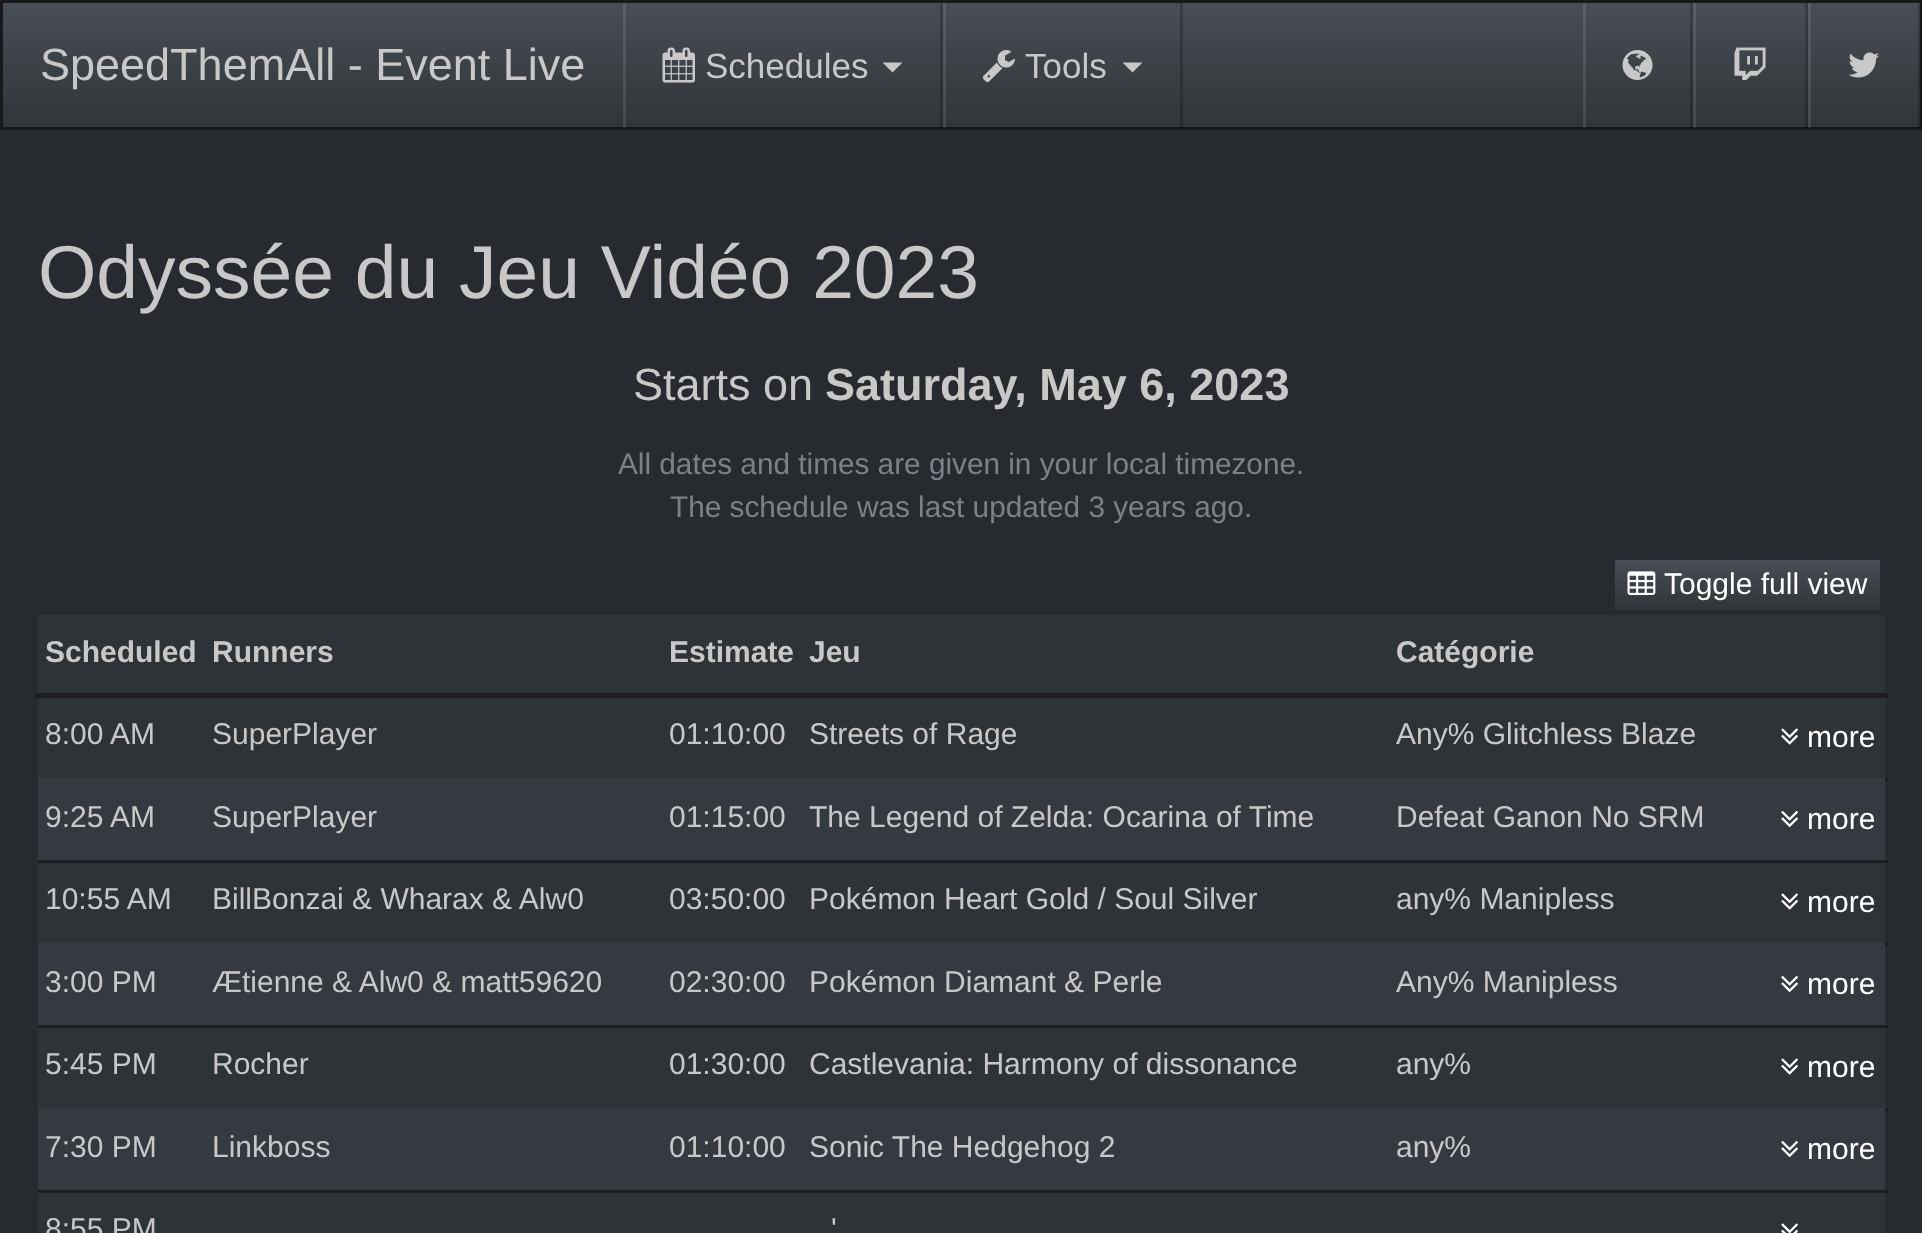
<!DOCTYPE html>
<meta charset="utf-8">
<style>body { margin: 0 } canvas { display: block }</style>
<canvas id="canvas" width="1922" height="1233"></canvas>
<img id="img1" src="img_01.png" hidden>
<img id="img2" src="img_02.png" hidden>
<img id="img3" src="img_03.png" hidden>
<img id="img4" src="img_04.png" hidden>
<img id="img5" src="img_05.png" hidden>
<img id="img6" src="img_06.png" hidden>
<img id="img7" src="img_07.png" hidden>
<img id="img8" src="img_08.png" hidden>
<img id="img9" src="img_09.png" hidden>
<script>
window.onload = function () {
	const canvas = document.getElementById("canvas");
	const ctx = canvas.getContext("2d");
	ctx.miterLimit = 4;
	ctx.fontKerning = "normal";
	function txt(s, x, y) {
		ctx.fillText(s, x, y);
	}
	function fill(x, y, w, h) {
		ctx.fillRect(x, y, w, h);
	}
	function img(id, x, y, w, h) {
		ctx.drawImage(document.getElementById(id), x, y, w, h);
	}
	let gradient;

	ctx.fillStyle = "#272B30";
	fill(0, 0, 1922, 1233);
	ctx.fillStyle = "#3A3F44";
	fill(0, 0, 1922, 130);
	gradient = ctx.createLinearGradient(961, 2.5, 961, 128);
	gradient.addColorStop(0, "#484E55");
	gradient.addColorStop(0.6, "#3A3F44");
	gradient.addColorStop(1, "#313539");
	ctx.fillStyle = gradient;
	fill(3, 3, 1917, 125);
	ctx.strokeStyle = "rgba(0, 0, 0, 0.6)";
	ctx.lineWidth = 3;
	ctx.strokeRect(1.5, 1.5, 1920, 127);
	ctx.fillStyle = "rgba(0, 0, 0, 0.2)";
	fill(940, 3, 3, 125);
	ctx.fillStyle = "rgba(255, 255, 255, 0.1)";
	fill(623, 3, 3, 125);
	img("img1", 662, 47, 33, 36);
	ctx.fillStyle = "#C8C8C8";
	ctx.beginPath();
	ctx.moveTo(882.5, 62.5);
	ctx.lineTo(902.5, 62.5);
	ctx.lineTo(892.5, 72.5);
	ctx.closePath();
	ctx.fill();
	ctx.fillStyle = "rgba(0, 0, 0, 0.2)";
	fill(1180, 3, 3, 125);
	ctx.fillStyle = "rgba(255, 255, 255, 0.1)";
	fill(943, 3, 3, 125);
	img("img2", 982, 50, 33, 33);
	ctx.fillStyle = "#C8C8C8";
	ctx.beginPath();
	ctx.moveTo(1122.5, 62.5);
	ctx.lineTo(1142.5, 62.5);
	ctx.lineTo(1132.5, 72.5);
	ctx.closePath();
	ctx.fill();
	ctx.fillStyle = "rgba(0, 0, 0, 0.2)";
	fill(1690, 3, 3, 125);
	ctx.fillStyle = "rgba(255, 255, 255, 0.1)";
	fill(1583, 3, 3, 125);
	img("img3", 1622, 50, 31, 30);
	ctx.fillStyle = "rgba(0, 0, 0, 0.2)";
	fill(1805, 3, 3, 125);
	ctx.fillStyle = "rgba(255, 255, 255, 0.1)";
	fill(1693, 3, 3, 125);
	img("img4", 1734, 47, 32, 33);
	ctx.fillStyle = "rgba(0, 0, 0, 0.2)";
	fill(1918, 3, 3, 125);
	ctx.fillStyle = "rgba(255, 255, 255, 0.1)";
	fill(1808, 3, 3, 125);
	img("img5", 1848, 52, 31, 26);
	gradient = ctx.createLinearGradient(1748, 560, 1748, 610);
	gradient.addColorStop(0, "#484E55");
	gradient.addColorStop(0.6, "#3A3F44");
	gradient.addColorStop(1, "#313539");
	ctx.fillStyle = gradient;
	fill(1615, 560, 265, 50);
	img("img6", 1627, 571, 29, 24);
	ctx.fillStyle = "#2E3338";
	fill(38, 615, 1847, 618);
	ctx.fillStyle = "#1C1E22";
	fill(35, 693, 1853, 5);
	img("img7", 1781, 728, 17, 17);
	fill(1885, 778, 3, 3);
	ctx.fillStyle = "#353A41";
	fill(38, 778, 1847, 82);
	img("img8", 1781, 811, 17, 17);
	ctx.fillStyle = "#1C1E22";
	fill(38, 860, 1850, 3);
	img("img7", 1781, 893, 17, 17);
	fill(1885, 943, 3, 3);
	ctx.fillStyle = "#353A41";
	fill(38, 943, 1847, 82);
	img("img8", 1781, 976, 17, 17);
	ctx.fillStyle = "#1C1E22";
	fill(38, 1025, 1850, 3);
	img("img7", 1781, 1058, 17, 17);
	fill(1885, 1108, 3, 3);
	ctx.fillStyle = "#353A41";
	fill(38, 1108, 1847, 82);
	img("img8", 1781, 1141, 17, 17);
	ctx.fillStyle = "#1C1E22";
	fill(38, 1190, 1850, 3);
	img("img9", 1781, 1223, 17, 10);
	ctx.font = "45px Liberation Sans";
	ctx.fillStyle = "#C8C8C8";
	txt("SpeedThemAll - Event Live", 40, 80);
	ctx.font = "35px Liberation Sans";
	txt("Schedules", 705, 78);
	txt("Tools", 1025, 78);
	ctx.font = "75px Liberation Sans";
	txt("Odyssée du Jeu Vidéo 2023", 38, 298);
	ctx.font = "45px Liberation Sans";
	txt("Starts on", 633, 400);
	ctx.font = "bold 45px Liberation Sans";
	txt("Saturday, May 6, 2023", 825, 400);
	ctx.font = "29.75px Liberation Sans";
	ctx.fillStyle = "#7A8288";
	txt("All dates and times are given in your local timezone.", 618, 474);
	txt("The schedule was last updated 3 years ago.", 670, 517);
	ctx.font = "30px Liberation Sans";
	ctx.fillStyle = "#FFFFFF";
	txt("Toggle full view", 1664, 594);
	ctx.font = "bold 30px Liberation Sans";
	ctx.fillStyle = "#C8C8C8";
	txt("Scheduled", 45, 662);
	txt("Runners", 212, 662);
	txt("Estimate", 669, 662);
	txt("Jeu", 809, 662);
	txt("Catégorie", 1396, 662);
	ctx.font = "30px Liberation Sans";
	txt("8:00 AM", 45, 744);
	txt("SuperPlayer", 212, 744);
	txt("01:10:00", 669, 744);
	txt("Streets of Rage", 809, 744);
	txt("Any% Glitchless Blaze", 1396, 744);
	ctx.fillStyle = "#FFFFFF";
	txt("more", 1807, 747);
	ctx.fillStyle = "#C8C8C8";
	txt("9:25 AM", 45, 827);
	txt("SuperPlayer", 212, 827);
	txt("01:15:00", 669, 827);
	txt("The Legend of Zelda: Ocarina of Time", 809, 827);
	txt("Defeat Ganon No SRM", 1396, 827);
	ctx.fillStyle = "#FFFFFF";
	txt("more", 1807, 829);
	ctx.fillStyle = "#C8C8C8";
	txt("10:55 AM", 45, 909);
	txt("BillBonzai & Wharax & Alw0", 212, 909);
	txt("03:50:00", 669, 909);
	txt("Pokémon Heart Gold / Soul Silver", 809, 909);
	txt("any% Manipless", 1396, 909);
	ctx.fillStyle = "#FFFFFF";
	txt("more", 1807, 912);
	ctx.fillStyle = "#C8C8C8";
	txt("3:00 PM", 45, 992);
	txt("Ætienne & Alw0 & matt59620", 212, 992);
	txt("02:30:00", 669, 992);
	txt("Pokémon Diamant & Perle", 809, 992);
	txt("Any% Manipless", 1396, 992);
	ctx.fillStyle = "#FFFFFF";
	txt("more", 1807, 994);
	ctx.fillStyle = "#C8C8C8";
	txt("5:45 PM", 45, 1074);
	txt("Rocher", 212, 1074);
	txt("01:30:00", 669, 1074);
	txt("Castlevania: Harmony of dissonance", 809, 1074);
	txt("any%", 1396, 1074);
	ctx.fillStyle = "#FFFFFF";
	txt("more", 1807, 1077);
	ctx.fillStyle = "#C8C8C8";
	txt("7:30 PM", 45, 1157);
	txt("Linkboss", 212, 1157);
	txt("01:10:00", 669, 1157);
	txt("Sonic The Hedgehog 2", 809, 1157);
	txt("any%", 1396, 1157);
	ctx.fillStyle = "#FFFFFF";
	txt("more", 1807, 1159);
	ctx.fillStyle = "#C8C8C8";
	txt("8:55 PM", 45, 1239);
	txt("'", 831, 1239);
};
</script>
